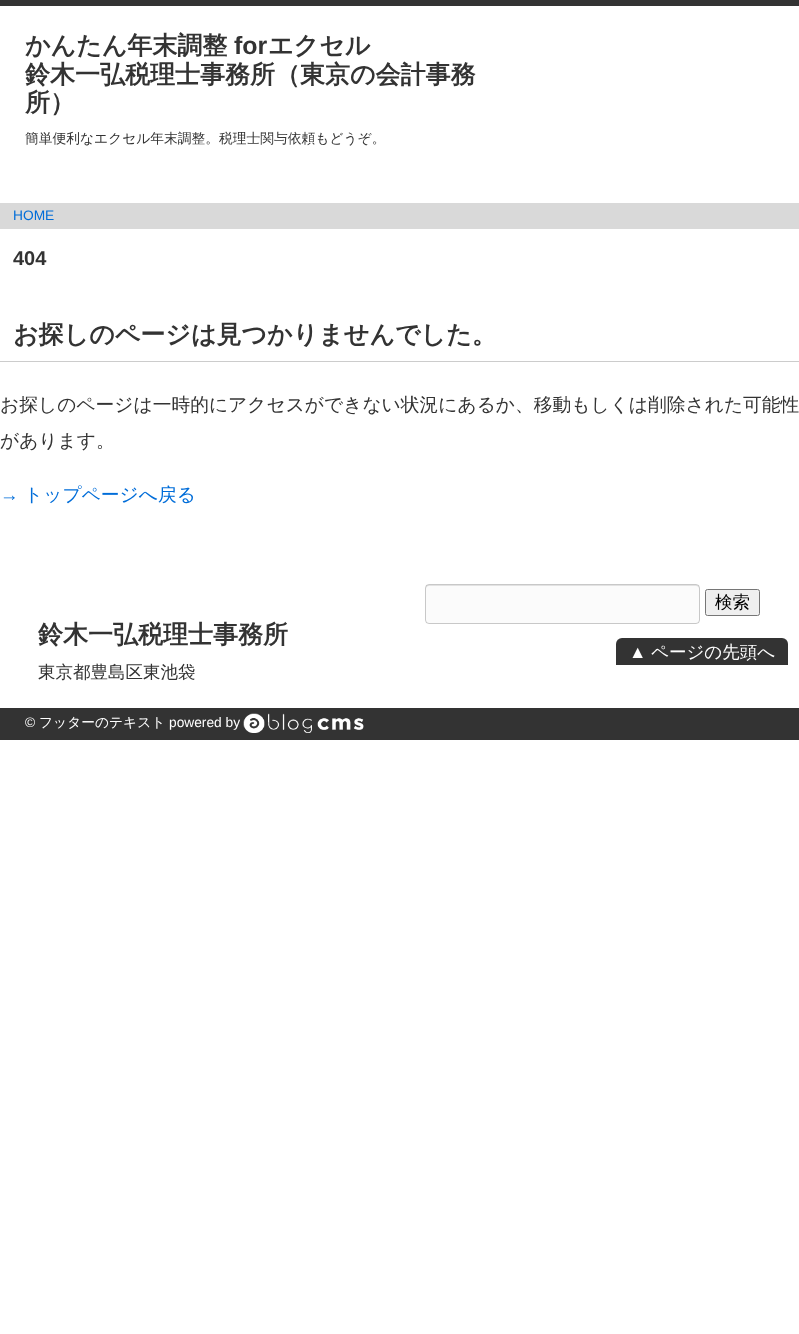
<!DOCTYPE html>
<meta charset="utf-8">
<style>body { margin: 0 } canvas { display: block }</style>
<canvas id="canvas" width="799" height="1334"></canvas>
<img id="img1" src="img_01.png" hidden>
<script>
window.onload = function () {
	const canvas = document.getElementById("canvas");
	const ctx = canvas.getContext("2d");
	ctx.miterLimit = 4;
	ctx.fontKerning = "normal";
	function txt(s, x, y) {
		ctx.fillText(s, x, y);
	}
	function fill(x, y, w, h) {
		ctx.fillRect(x, y, w, h);
	}
	function round(x, y, w, h, r) {
		ctx.beginPath();
		ctx.roundRect(x, y, w, h, r);
		ctx.fill();
	}
	function img(id, x, y, w, h) {
		ctx.drawImage(document.getElementById(id), x, y, w, h);
	}

	ctx.fillStyle = "#FFFFFF";
	fill(0, 0, 799, 1334);
	ctx.fillStyle = "#333333";
	fill(0, 0, 799, 6);
	ctx.fillStyle = "#D9D9D9";
	fill(0, 203, 799, 26);
	ctx.fillStyle = "#CCCCCC";
	fill(0, 361, 799, 1);
	ctx.fillStyle = "#FBFBFB";
	round(425, 584, 275, 40, 4);
	ctx.fillStyle = "#E2E2E2";
	ctx.beginPath();
	ctx.moveTo(429, 586);
	ctx.lineTo(696, 586);
	ctx.bezierCurveTo(698, 586, 699, 587, 699, 589);
	ctx.lineTo(699, 588);
	ctx.bezierCurveTo(699, 586, 698, 585, 696, 585);
	ctx.lineTo(428, 585);
	ctx.bezierCurveTo(427, 585, 426, 586, 426, 588);
	ctx.lineTo(426, 589);
	ctx.bezierCurveTo(426, 587, 427, 586, 429, 586);
	ctx.closePath();
	ctx.fill();
	ctx.beginPath();
	ctx.roundRect(425.5, 584.5, 274, 39, 3.5);
	ctx.strokeStyle = "rgba(0, 0, 0, 0.2)";
	ctx.stroke();
	ctx.fillStyle = "#EFEFEF";
	ctx.beginPath();
	ctx.roundRect(705.5, 589.5, 54, 26, 2);
	ctx.fill();
	ctx.strokeStyle = "#767676";
	ctx.stroke();
	ctx.fillStyle = "#333333";
	ctx.beginPath();
	ctx.roundRect(616, 638, 172, 27, [6, 6, 0, 0]);
	ctx.fill();
	fill(0, 708, 799, 32);
	img("img1", 243, 713, 121, 20);
	ctx.font = "bold 25px WenQuanYi Zen Hei";
	txt("かんたん年末調整", 25, 54);
	ctx.font = "bold 25px Liberation Sans";
	txt("for", 234, 54);
	ctx.font = "bold 25px WenQuanYi Zen Hei";
	txt("エクセル", 268, 54);
	txt("鈴木一弘税理士事務所（東京の会計事務", 25, 83);
	txt("所）", 25, 111);
	ctx.font = "500 13.75px WenQuanYi Zen Hei";
	txt("簡単便利なエクセル年末調整。税理士関与依頼もどうぞ。", 25, 143);
	ctx.font = "13.75px Liberation Sans";
	ctx.fillStyle = "#006DD9";
	txt("HOME", 13, 220);
	ctx.font = "bold 20px Liberation Sans";
	ctx.fillStyle = "#333333";
	txt("404", 13, 265);
	ctx.font = "bold 25px WenQuanYi Zen Hei";
	txt("お探しのページは見つかりませんでした。", 13, 343);
	ctx.font = "500 18.75px WenQuanYi Zen Hei";
	txt("お探しのページは一時的にアクセスができない状況にあるか、移動もしくは削除された可能性", 0, 411);
	txt("があります。", 0, 447);
	ctx.font = "18.75px Liberation Sans";
	ctx.fillStyle = "#006DD9";
	txt("→", 0, 501);
	ctx.font = "500 18.75px WenQuanYi Zen Hei";
	txt("トップページへ戻る", 24, 501);
	ctx.font = "bold 25px WenQuanYi Zen Hei";
	ctx.fillStyle = "#333333";
	txt("鈴木一弘税理士事務所", 38, 643);
	ctx.font = "500 17.5px WenQuanYi Zen Hei";
	txt("東京都豊島区東池袋", 38, 678);
	ctx.fillStyle = "#000000";
	txt("検索", 715, 608);
	ctx.font = "17.5px Liberation Sans";
	ctx.fillStyle = "#FFFFFF";
	txt("▲", 629, 658);
	ctx.font = "500 17.5px WenQuanYi Zen Hei";
	txt("ページの先頭へ", 651, 658);
	ctx.font = "13.75px Liberation Sans";
	txt("©", 25, 727);
	ctx.font = "500 13.75px WenQuanYi Zen Hei";
	txt("フッターのテキスト", 39, 727);
	ctx.font = "13.75px Liberation Sans";
	txt("powered by", 169, 727);
};
</script>
